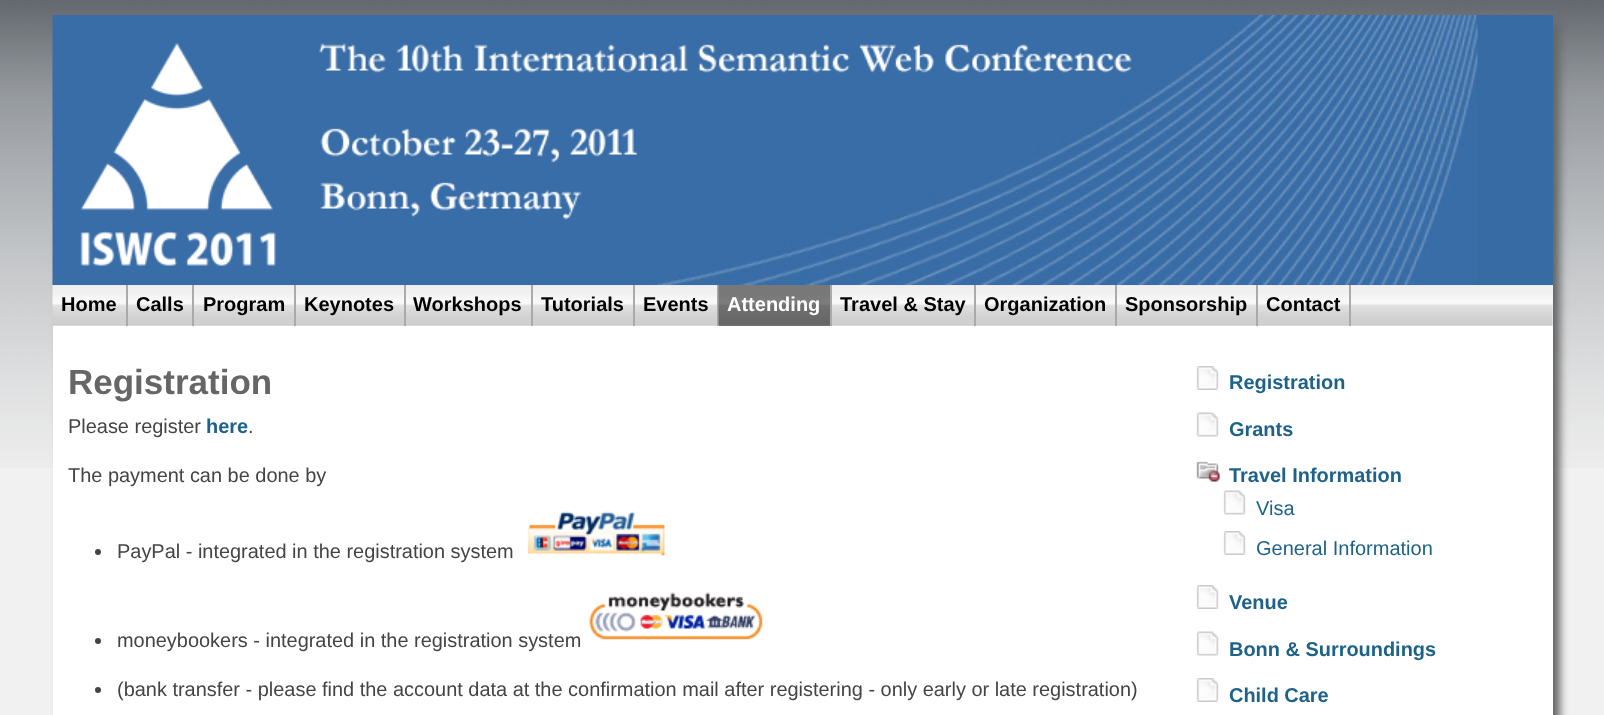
<!DOCTYPE html>
<meta charset="utf-8">
<style>body { margin: 0 } canvas { display: block }</style>
<canvas id="canvas" width="1604" height="715"></canvas>
<img id="img1" src="img_01.png" hidden>
<img id="img2" src="img_02.png" hidden>
<img id="img3" src="img_03.png" hidden>
<img id="img4" src="img_04.png" hidden>
<img id="img5" src="img_05.png" hidden>
<img id="img6" src="img_06.png" hidden>
<img id="img7" src="img_07.png" hidden>
<img id="img8" src="img_08.png" hidden>
<img id="img9" src="img_09.png" hidden>
<img id="img10" src="img_10.png" hidden>
<img id="img11" src="img_11.png" hidden>
<img id="img12" src="img_12.png" hidden>
<script>
window.onload = function () {
	const canvas = document.getElementById("canvas");
	const ctx = canvas.getContext("2d");
	ctx.miterLimit = 4;
	ctx.fontKerning = "normal";
	function txt(s, x, y) {
		ctx.fillText(s, x, y);
	}
	function fill(x, y, w, h) {
		ctx.fillRect(x, y, w, h);
	}
	function img(id, x, y, w, h) {
		ctx.drawImage(document.getElementById(id), x, y, w, h);
	}

	ctx.fillStyle = "#F1F1F1";
	fill(0, 0, 1604, 715);
	img("img1", 0, 0, 1604, 468);
	ctx.fillStyle = "#666666";
	ctx.filter = "blur(4px)";
	ctx.beginPath();
	ctx.rect(60, 23, 1500, 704);
	ctx.fill();
	ctx.filter = "none";
	ctx.fillStyle = "#376BA4";
	fill(1477, 15, 76, 270);
	img("img2", 52, 15, 1426, 270);
	img("img3", 80, 43, 1052, 223);
	ctx.fillStyle = "#F2F2F2";
	fill(53, 285, 1500, 41);
	img("img4", 52, 285, 1501, 41);
	ctx.fillStyle = "#AAAAAA";
	fill(126, 285, 2, 41);
	fill(192, 285, 2, 41);
	fill(294, 285, 2, 41);
	fill(404, 285, 2, 41);
	fill(531, 285, 2, 41);
	fill(633, 285, 2, 41);
	fill(717, 285, 2, 41);
	ctx.fillStyle = "#797979";
	fill(719, 325, 111, 1);
	img("img5", 718, 285, 112, 41);
	ctx.fillStyle = "#AAAAAA";
	fill(830, 285, 2, 41);
	fill(974, 285, 2, 41);
	fill(1115, 285, 2, 41);
	fill(1256, 285, 2, 41);
	fill(1349, 285, 2, 41);
	ctx.fillStyle = "#FFFFFF";
	fill(53, 326, 1500, 389);
	ctx.fillStyle = "#444444";
	ctx.beginPath();
	ctx.arc(98, 552, 3, 0, Math.PI * 2);
	ctx.fill();
	img("img6", 527, 511, 138, 45);
	img("img7", 589, 592, 174, 48);
	ctx.beginPath();
	ctx.arc(98, 641, 3, 0, Math.PI * 2);
	ctx.fill();
	ctx.beginPath();
	ctx.arc(98, 690, 3, 0, Math.PI * 2);
	ctx.fill();
	img("img8", 1196, 366, 23, 24);
	img("img9", 1196, 412, 23, 25);
	img("img10", 1196, 461, 24, 21);
	img("img11", 1223, 490, 23, 25);
	img("img12", 1223, 531, 23, 24);
	img("img8", 1196, 585, 23, 24);
	img("img9", 1196, 631, 23, 25);
	img("img8", 1196, 678, 23, 24);
	ctx.font = "bold 20px Liberation Sans";
	ctx.fillStyle = "#000000";
	txt("Home", 61, 311);
	txt("Calls", 136, 311);
	txt("Program", 203, 311);
	txt("Keynotes", 304, 311);
	txt("Workshops", 413, 311);
	txt("Tutorials", 541, 311);
	txt("Events", 643, 311);
	ctx.fillStyle = "#FFFFFF";
	txt("Attending", 727, 311);
	ctx.fillStyle = "#000000";
	txt("Travel & Stay", 840, 311);
	txt("Organization", 984, 311);
	txt("Sponsorship", 1125, 311);
	txt("Contact", 1266, 311);
	ctx.font = "bold 35px Liberation Sans";
	ctx.fillStyle = "#666666";
	txt("Registration", 68, 394);
	ctx.font = "19.95px Liberation Sans";
	ctx.fillStyle = "#444444";
	txt("Please register", 68, 433);
	ctx.font = "bold 19.95px Liberation Sans";
	ctx.fillStyle = "#1E6289";
	txt("here", 206, 433);
	ctx.font = "19.95px Liberation Sans";
	ctx.fillStyle = "#444444";
	txt(".", 248, 433);
	txt("The payment can be done by", 68, 482);
	txt("PayPal - integrated in the registration system", 117, 558);
	txt("moneybookers - integrated in the registration system", 117, 647);
	txt("(bank transfer - please find the account data at the confirmation mail after registering - only early or late registration)", 117, 696);
	ctx.font = "bold 19.95px Liberation Sans";
	ctx.fillStyle = "#1E6289";
	txt("Registration", 1229, 389);
	txt("Grants", 1229, 436);
	txt("Travel Information", 1229, 482);
	ctx.font = "20px Liberation Sans";
	txt("Visa", 1256, 515);
	txt("General Information", 1256, 555);
	ctx.font = "bold 19.95px Liberation Sans";
	txt("Venue", 1229, 609);
	txt("Bonn & Surroundings", 1229, 656);
	txt("Child Care", 1229, 702);
};
</script>
